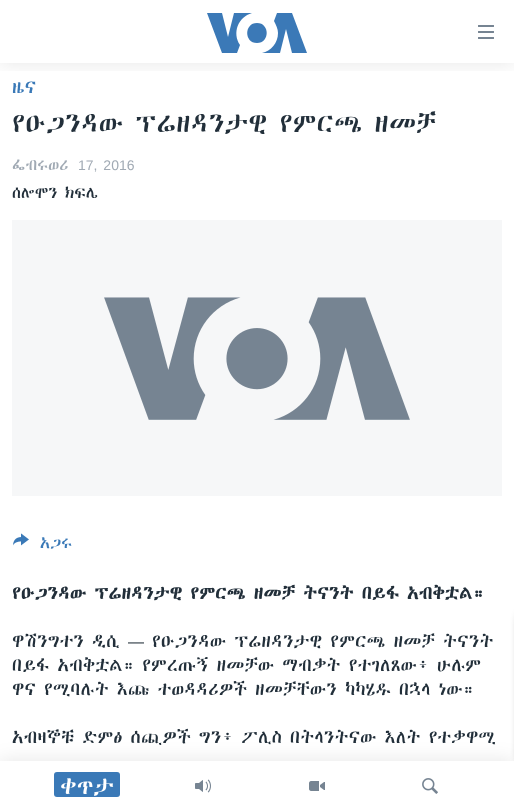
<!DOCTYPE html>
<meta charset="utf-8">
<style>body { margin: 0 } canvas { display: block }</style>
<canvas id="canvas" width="514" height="811"></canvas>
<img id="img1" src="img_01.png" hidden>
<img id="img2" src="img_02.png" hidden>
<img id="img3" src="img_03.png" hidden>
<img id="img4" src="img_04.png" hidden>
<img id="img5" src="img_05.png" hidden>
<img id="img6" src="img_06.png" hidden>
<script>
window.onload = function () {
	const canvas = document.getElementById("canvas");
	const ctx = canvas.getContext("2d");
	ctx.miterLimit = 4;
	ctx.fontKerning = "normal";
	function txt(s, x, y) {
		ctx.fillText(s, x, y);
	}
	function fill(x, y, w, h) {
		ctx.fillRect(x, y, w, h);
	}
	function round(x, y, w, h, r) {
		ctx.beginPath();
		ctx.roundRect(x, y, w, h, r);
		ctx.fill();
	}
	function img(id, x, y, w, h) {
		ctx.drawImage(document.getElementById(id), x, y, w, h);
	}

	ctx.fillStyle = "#FFFFFF";
	fill(0, 0, 514, 811);
	ctx.fillStyle = "#F6F7F8";
	fill(12, 220, 490, 276);
	img("img1", 104, 297, 306, 123);
	img("img2", 13, 533, 16, 13);
	ctx.fillStyle = "rgba(0, 0, 0, 0.85)";
	ctx.filter = "blur(5px)";
	ctx.beginPath();
	ctx.roundRect(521, 615, 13, 146, 5);
	ctx.fill();
	ctx.filter = "none";
	ctx.save();
	ctx.beginPath();
	ctx.rect(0, 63, 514, 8);
	ctx.clip();
	ctx.fillStyle = "rgba(0, 0, 0, 0.1)";
	ctx.filter = "blur(10px)";
	ctx.beginPath();
	ctx.rect(0, 0, 514, 63);
	ctx.fill();
	ctx.filter = "none";
	ctx.restore();
	ctx.fillStyle = "#3B79B7";
	ctx.beginPath();
	ctx.moveTo(240, 45);
	ctx.lineTo(237, 53);
	ctx.lineTo(222, 53);
	ctx.lineTo(207, 13);
	ctx.lineTo(222, 13);
	ctx.lineTo(228, 37);
	ctx.lineTo(234, 13);
	ctx.lineTo(252, 13);
	ctx.bezierCurveTo(238, 17, 232, 33, 240, 45);
	ctx.closePath();
	ctx.moveTo(257, 23);
	ctx.bezierCurveTo(244, 23, 244, 43, 257, 43);
	ctx.bezierCurveTo(270, 43, 270, 23, 257, 23);
	ctx.closePath();
	ctx.moveTo(278, 33);
	ctx.bezierCurveTo(278, 43, 271, 51, 262, 53);
	ctx.lineTo(280, 53);
	ctx.lineTo(286, 29);
	ctx.lineTo(292, 53);
	ctx.lineTo(307, 53);
	ctx.lineTo(292, 13);
	ctx.lineTo(277, 13);
	ctx.lineTo(274, 21);
	ctx.bezierCurveTo(276, 25, 278, 29, 278, 33);
	ctx.closePath();
	ctx.fill();
	img("img3", 478, 25, 16, 14);
	ctx.fillStyle = "rgba(0, 0, 0, 0.1)";
	ctx.filter = "blur(10px)";
	ctx.beginPath();
	ctx.rect(0, 761, 514, 50);
	ctx.fill();
	ctx.filter = "none";
	ctx.fillStyle = "#FFFFFF";
	fill(0, 761, 514, 50);
	ctx.fillStyle = "#3A79B7";
	round(54, 772, 66, 25, 3);
	img("img4", 195, 779, 16, 14);
	img("img5", 309, 781, 16, 10);
	img("img6", 422, 778, 16, 16);
	ctx.font = "16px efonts";
	txt("ዜና", 12, 93);
	ctx.font = "24px efonts";
	ctx.fillStyle = "#222F3A";
	txt("የዑጋንዳው ፕሬዘዳንታዊ የምርጫ ዘመቻ", 12, 132);
	ctx.font = "14px efonts";
	ctx.fillStyle = "#A1AAB4";
	txt("ፌብሩወሪ", 12, 170);
	ctx.wordSpacing = "2px";
	ctx.font = "14px Liberation Sans";
	txt("17, 2016", 78, 170);
	ctx.wordSpacing = "0px";
	ctx.font = "14px efonts";
	ctx.fillStyle = "#222F3A";
	txt("ሰሎሞን ክፍሌ", 12, 198);
	ctx.fillStyle = "#3A79B7";
	txt("አጋሩ", 40, 548);
	ctx.font = "bold 16px efonts";
	ctx.fillStyle = "#222F3A";
	txt("የዑጋንዳው ፕሬዘዳንታዊ የምርጫ ዘመቻ ትናንት በይፋ አብቅቷል።", 12, 599);
	ctx.font = "16px efonts";
	txt("ዋሽንግተን ዲሲ", 12, 647);
	ctx.font = "16px Liberation Sans";
	txt("—", 128, 647);
	ctx.font = "16px efonts";
	txt("የዑጋንዳው ፕሬዘዳንታዊ የምርጫ ዘመቻ ትናንት", 152, 647);
	txt("በይፋ አብቅቷል። የምረጡኝ ዘመቻው ማብቃት የተገለጸው፥ ሁሉም", 12, 671);
	txt("ዋና የሚባሉት እጩ ተወዳዳሪዎች ዘመቻቸውን ካካሄዱ በኋላ ነው።", 12, 695);
	txt("አብዛኞቹ ድምፅ ሰጪዎች ግን፥ ፖሊስ በትላንትናው እለት የተቃዋሚ", 12, 743);
	ctx.font = "21px efonts";
	ctx.fillStyle = "#FFFFFF";
	txt("ቀጥታ", 60, 794);
};
</script>
